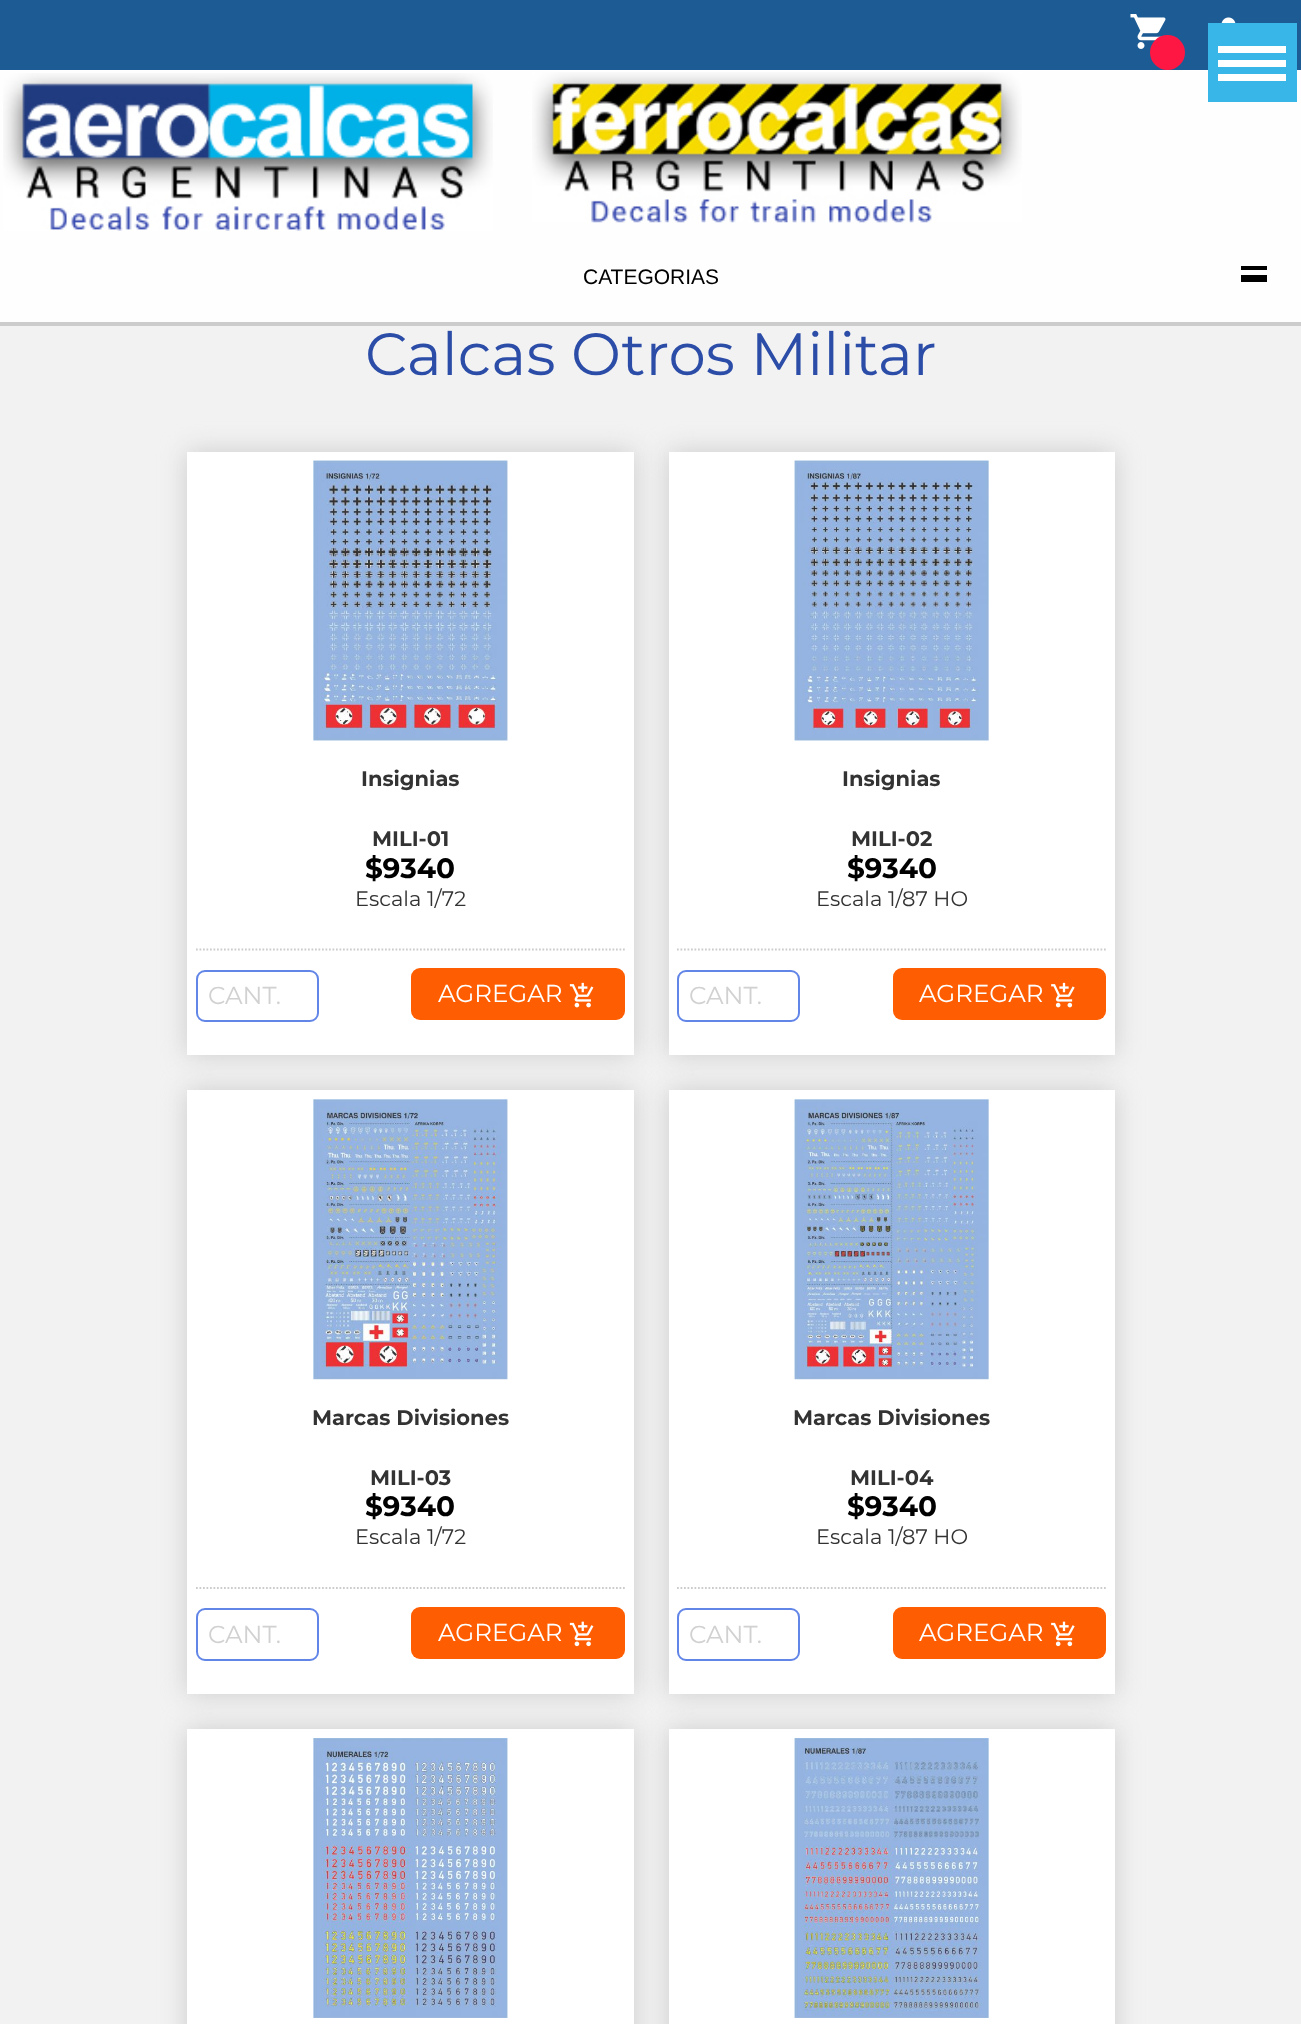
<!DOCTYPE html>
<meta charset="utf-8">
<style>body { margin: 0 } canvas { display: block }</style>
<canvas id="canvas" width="1301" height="2024"></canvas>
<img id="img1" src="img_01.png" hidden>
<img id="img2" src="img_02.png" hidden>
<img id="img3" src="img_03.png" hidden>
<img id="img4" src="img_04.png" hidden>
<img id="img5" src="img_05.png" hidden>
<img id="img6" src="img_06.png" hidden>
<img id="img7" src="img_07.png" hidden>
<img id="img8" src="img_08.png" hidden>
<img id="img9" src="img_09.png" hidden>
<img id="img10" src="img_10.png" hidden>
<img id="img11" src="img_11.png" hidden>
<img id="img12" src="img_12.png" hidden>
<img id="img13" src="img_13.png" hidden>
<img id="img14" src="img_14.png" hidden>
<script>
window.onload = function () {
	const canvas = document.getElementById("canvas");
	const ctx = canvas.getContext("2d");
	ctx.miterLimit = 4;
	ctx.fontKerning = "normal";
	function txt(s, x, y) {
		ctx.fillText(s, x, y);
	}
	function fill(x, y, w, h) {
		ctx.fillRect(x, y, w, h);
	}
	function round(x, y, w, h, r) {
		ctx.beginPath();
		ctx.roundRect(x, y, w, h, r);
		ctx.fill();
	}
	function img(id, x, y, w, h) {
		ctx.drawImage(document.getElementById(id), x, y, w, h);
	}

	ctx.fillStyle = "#F2F2F2";
	fill(0, 0, 1301, 2024);
	ctx.fillStyle = "#FEFEFE";
	fill(0, 70, 1301, 252);
	ctx.fillStyle = "#CCCCCC";
	fill(0, 322, 1301, 4);
	ctx.fillStyle = "#1D5B94";
	fill(0, 0, 1301, 70);
	img("img1", 1130, 14, 36, 35);
	ctx.fillStyle = "#FF1744";
	ctx.beginPath();
	ctx.arc(1167.5, 52.5, 17.5, 0, Math.PI * 2);
	ctx.fill();
	img("img2", 1221, 17, 15, 6);
	ctx.fillStyle = "#37B6E7";
	fill(1208, 23, 89, 79);
	ctx.fillStyle = "#FFFFFF";
	fill(1218, 60, 68, 7);
	fill(1218, 46, 68, 7);
	fill(1218, 74, 68, 7);
	img("img3", 3, 73, 490, 158);
	img("img4", 532, 72, 490, 151);
	ctx.fillStyle = "#000000";
	fill(1241, 266, 26, 4);
	fill(1241, 275, 26, 7);
	ctx.fillStyle = "#CCCCCC";
	ctx.filter = "blur(13px)";
	ctx.beginPath();
	ctx.rect(187, 452, 447, 603);
	ctx.fill();
	ctx.filter = "none";
	ctx.fillStyle = "#FFFFFF";
	fill(187, 452, 447, 603);
	img("img5", 313, 460, 195, 281);
	ctx.beginPath();
	ctx.moveTo(196, 949.5);
	ctx.lineTo(625, 949.5);
	ctx.strokeStyle = "#CCCCCC";
	ctx.lineWidth = 1.8;
	ctx.setLineDash([1.75, 1.75]);
	ctx.stroke();
	ctx.beginPath();
	ctx.roundRect(197, 971, 121, 50, 8);
	ctx.strokeStyle = "#6285E8";
	ctx.lineWidth = 2;
	ctx.setLineDash([]);
	ctx.stroke();
	ctx.fillStyle = "#FF5D01";
	round(411, 968, 214, 52, 9);
	img("img6", 569, 982, 25, 26);
	ctx.fillStyle = "#CCCCCC";
	ctx.filter = "blur(13px)";
	ctx.beginPath();
	ctx.rect(669, 452, 446, 603);
	ctx.fill();
	ctx.filter = "none";
	ctx.fillStyle = "#FFFFFF";
	fill(669, 452, 446, 603);
	img("img7", 794, 460, 195, 281);
	ctx.beginPath();
	ctx.moveTo(677, 949.5);
	ctx.lineTo(1106, 949.5);
	ctx.strokeStyle = "#CCCCCC";
	ctx.lineWidth = 1.8;
	ctx.setLineDash([1.75, 1.75]);
	ctx.stroke();
	ctx.beginPath();
	ctx.roundRect(678, 971, 121, 50, 8);
	ctx.strokeStyle = "#6285E8";
	ctx.lineWidth = 2;
	ctx.setLineDash([]);
	ctx.stroke();
	ctx.fillStyle = "#FF5D01";
	round(893, 968, 213, 52, 9);
	img("img8", 1051, 982, 24, 26);
	ctx.fillStyle = "#CCCCCC";
	ctx.filter = "blur(13px)";
	ctx.beginPath();
	ctx.rect(187, 1090, 447, 604);
	ctx.fill();
	ctx.filter = "none";
	ctx.fillStyle = "#FFFFFF";
	fill(187, 1090, 447, 604);
	img("img9", 313, 1099, 195, 281);
	ctx.beginPath();
	ctx.moveTo(196, 1588);
	ctx.lineTo(625, 1588);
	ctx.strokeStyle = "#CCCCCC";
	ctx.lineWidth = 1.8;
	ctx.setLineDash([1.75, 1.75]);
	ctx.stroke();
	ctx.beginPath();
	ctx.roundRect(197, 1609, 121, 51, 8);
	ctx.strokeStyle = "#6285E8";
	ctx.lineWidth = 2;
	ctx.setLineDash([]);
	ctx.stroke();
	ctx.fillStyle = "#FF5D01";
	round(411, 1607, 214, 52, 9);
	img("img10", 569, 1621, 25, 26);
	ctx.fillStyle = "#CCCCCC";
	ctx.filter = "blur(13px)";
	ctx.beginPath();
	ctx.rect(669, 1090, 446, 604);
	ctx.fill();
	ctx.filter = "none";
	ctx.fillStyle = "#FFFFFF";
	fill(669, 1090, 446, 604);
	img("img11", 794, 1099, 195, 281);
	ctx.beginPath();
	ctx.moveTo(677, 1588);
	ctx.lineTo(1106, 1588);
	ctx.strokeStyle = "#CCCCCC";
	ctx.lineWidth = 1.8;
	ctx.setLineDash([1.75, 1.75]);
	ctx.stroke();
	ctx.beginPath();
	ctx.roundRect(678, 1609, 121, 51, 8);
	ctx.strokeStyle = "#6285E8";
	ctx.lineWidth = 2;
	ctx.setLineDash([]);
	ctx.stroke();
	ctx.fillStyle = "#FF5D01";
	round(893, 1607, 213, 52, 9);
	img("img12", 1051, 1621, 24, 26);
	ctx.fillStyle = "#CCCCCC";
	ctx.filter = "blur(13px)";
	ctx.beginPath();
	ctx.rect(187, 1729, 447, 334);
	ctx.fill();
	ctx.filter = "none";
	ctx.fillStyle = "#FFFFFF";
	fill(187, 1729, 447, 295);
	img("img13", 313, 1738, 195, 280);
	ctx.fillStyle = "#CCCCCC";
	ctx.filter = "blur(13px)";
	ctx.beginPath();
	ctx.rect(669, 1729, 446, 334);
	ctx.fill();
	ctx.filter = "none";
	ctx.fillStyle = "#FFFFFF";
	fill(669, 1729, 446, 295);
	img("img14", 794, 1738, 195, 280);
	ctx.font = "21px Liberation Sans";
	ctx.fillStyle = "#000000";
	txt("CATEGORIAS", 583, 284);
	ctx.font = "59.5px Montserrat";
	ctx.fillStyle = "#2B4DA8";
	txt("Calcas Otros Militar", 365, 375);
	ctx.font = "bold 21px Montserrat";
	ctx.fillStyle = "#333333";
	txt("Insignias", 361, 786);
	txt("MILI-01", 372, 846);
	ctx.font = "bold 28px Montserrat";
	ctx.fillStyle = "#000000";
	txt("$9340", 365, 878);
	ctx.font = "21px Montserrat";
	ctx.fillStyle = "#333333";
	txt("Escala 1/72", 355, 906);
	ctx.font = "24.5px Montserrat";
	ctx.fillStyle = "#D1D1D1";
	txt("CANT.", 208, 1004);
	ctx.fillStyle = "#FFFFFF";
	txt("AGREGAR", 438, 1002);
	ctx.font = "bold 21px Montserrat";
	ctx.fillStyle = "#333333";
	txt("Insignias", 842, 786);
	txt("MILI-02", 851, 846);
	ctx.font = "bold 28px Montserrat";
	ctx.fillStyle = "#000000";
	txt("$9340", 847, 878);
	ctx.font = "21px Montserrat";
	ctx.fillStyle = "#333333";
	txt("Escala 1/87 HO", 816, 906);
	ctx.font = "24.5px Montserrat";
	ctx.fillStyle = "#D1D1D1";
	txt("CANT.", 689, 1004);
	ctx.fillStyle = "#FFFFFF";
	txt("AGREGAR", 919, 1002);
	ctx.font = "bold 21px Montserrat";
	ctx.fillStyle = "#333333";
	txt("Marcas Divisiones", 312, 1425);
	txt("MILI-03", 370, 1485);
	ctx.font = "bold 28px Montserrat";
	ctx.fillStyle = "#000000";
	txt("$9340", 365, 1516);
	ctx.font = "21px Montserrat";
	ctx.fillStyle = "#333333";
	txt("Escala 1/72", 355, 1544);
	ctx.font = "24.5px Montserrat";
	ctx.fillStyle = "#D1D1D1";
	txt("CANT.", 208, 1643);
	ctx.fillStyle = "#FFFFFF";
	txt("AGREGAR", 438, 1641);
	ctx.font = "bold 21px Montserrat";
	ctx.fillStyle = "#333333";
	txt("Marcas Divisiones", 793, 1425);
	txt("MILI-04", 850, 1485);
	ctx.font = "bold 28px Montserrat";
	ctx.fillStyle = "#000000";
	txt("$9340", 847, 1516);
	ctx.font = "21px Montserrat";
	ctx.fillStyle = "#333333";
	txt("Escala 1/87 HO", 816, 1544);
	ctx.font = "24.5px Montserrat";
	ctx.fillStyle = "#D1D1D1";
	txt("CANT.", 689, 1643);
	ctx.fillStyle = "#FFFFFF";
	txt("AGREGAR", 919, 1641);
};
</script>
